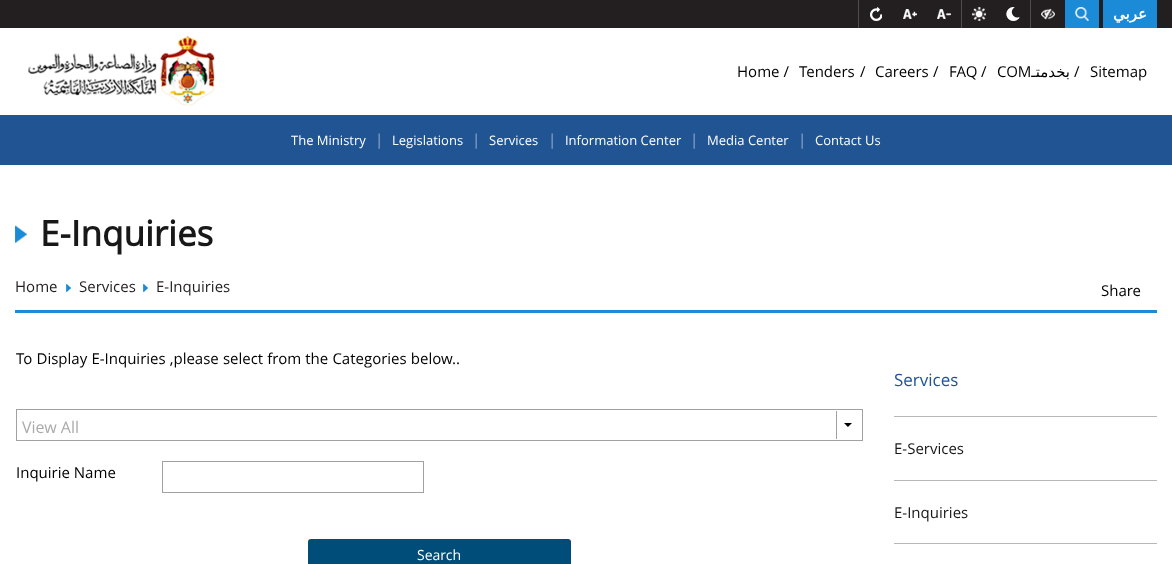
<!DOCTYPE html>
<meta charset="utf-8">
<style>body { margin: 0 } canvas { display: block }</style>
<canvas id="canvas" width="1172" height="564"></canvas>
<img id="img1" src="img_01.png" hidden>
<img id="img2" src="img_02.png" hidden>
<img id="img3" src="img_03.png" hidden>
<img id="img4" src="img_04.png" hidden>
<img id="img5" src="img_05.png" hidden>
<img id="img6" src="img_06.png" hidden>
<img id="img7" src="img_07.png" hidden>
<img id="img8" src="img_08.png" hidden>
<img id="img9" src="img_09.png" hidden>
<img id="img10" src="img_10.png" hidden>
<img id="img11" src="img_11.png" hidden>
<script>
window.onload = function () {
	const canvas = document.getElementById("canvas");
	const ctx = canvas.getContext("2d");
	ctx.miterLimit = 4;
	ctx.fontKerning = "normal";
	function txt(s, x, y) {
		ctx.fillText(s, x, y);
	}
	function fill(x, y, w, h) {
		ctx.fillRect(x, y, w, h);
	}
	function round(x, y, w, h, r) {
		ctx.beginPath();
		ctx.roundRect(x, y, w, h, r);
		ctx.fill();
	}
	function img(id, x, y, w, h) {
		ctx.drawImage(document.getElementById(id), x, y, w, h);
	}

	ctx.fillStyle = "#FFFFFF";
	fill(0, 0, 1172, 564);
	ctx.fillStyle = "#231F20";
	fill(0, 0, 1172, 28);
	ctx.fillStyle = "#4F4C4D";
	fill(858, 0, 1, 28);
	img("img1", 870, 7, 12, 14);
	img("img2", 903, 9, 14, 10);
	img("img3", 937, 9, 14, 10);
	fill(961, 0, 1, 28);
	img("img4", 972, 7, 14, 14);
	img("img5", 1006, 7, 14, 14);
	fill(1030, 0, 1, 28);
	img("img6", 1041, 8, 14, 12);
	ctx.fillStyle = "#1B8BD7";
	fill(1065, 0, 34, 28);
	img("img7", 1075, 7, 14, 14);
	fill(1103, 0, 54, 28);
	img("img8", 28, 36, 187, 70);
	ctx.fillStyle = "#215493";
	fill(0, 115, 1172, 50);
	img("img9", 15, 225, 12, 18);
	img("img10", 66, 284, 5, 8);
	img("img10", 143, 284, 5, 8);
	ctx.fillStyle = "#1B8BD7";
	fill(15, 310, 1142, 3);
	img("img11", 836, 411, 16, 28);
	ctx.strokeStyle = "#A1A1A1";
	ctx.strokeRect(16.5, 409.5, 846, 31);
	ctx.strokeRect(162.5, 461.5, 261, 31);
	ctx.fillStyle = "#004D79";
	round(308, 539, 263, 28, 3);
	ctx.fillStyle = "#B7B7B7";
	fill(894, 416, 263, 1);
	fill(894, 480, 263, 1);
	fill(894, 543, 263, 1);
	ctx.direction = "rtl";
	ctx.font = "bold 15px DejaVu Sans";
	ctx.fillStyle = "#FFFFFF";
	txt("عربي", 1147, 19);
	ctx.direction = "ltr";
	ctx.font = "15px Open Sans";
	ctx.fillStyle = "#000000";
	txt("Home /", 737, 77);
	txt("Tenders", 799, 77);
	txt("/", 860, 77);
	txt("Careers", 875, 77);
	txt("/", 933, 77);
	txt("FAQ", 949, 77);
	txt("/", 981, 77);
	txt("COM", 997, 77);
	ctx.direction = "rtl";
	ctx.font = "15px DejaVu Sans";
	txt("بخدمتـ", 1070, 77);
	ctx.direction = "ltr";
	ctx.font = "15px Open Sans";
	txt("/", 1074, 77);
	txt("Sitemap", 1090, 77);
	ctx.font = "13px Open Sans";
	ctx.fillStyle = "#FFFFFF";
	txt("The Ministry", 291, 145);
	ctx.font = "15px Open Sans";
	ctx.fillStyle = "#90AAC9";
	txt("|", 375, 145);
	ctx.font = "13px Open Sans";
	ctx.fillStyle = "#FFFFFF";
	txt("Legislations", 392, 145);
	ctx.font = "15px Open Sans";
	ctx.fillStyle = "#90AAC9";
	txt("|", 472, 145);
	ctx.font = "13px Open Sans";
	ctx.fillStyle = "#FFFFFF";
	txt("Services", 489, 145);
	ctx.font = "15px Open Sans";
	ctx.fillStyle = "#90AAC9";
	txt("|", 548, 145);
	ctx.font = "13px Open Sans";
	ctx.fillStyle = "#FFFFFF";
	txt("Information Center", 565, 145);
	ctx.font = "15px Open Sans";
	ctx.fillStyle = "#90AAC9";
	txt("|", 690, 145);
	ctx.font = "13px Open Sans";
	ctx.fillStyle = "#FFFFFF";
	txt("Media Center", 707, 145);
	ctx.font = "15px Open Sans";
	ctx.fillStyle = "#90AAC9";
	txt("|", 798, 145);
	ctx.font = "13px Open Sans";
	ctx.fillStyle = "#FFFFFF";
	txt("Contact Us", 815, 145);
	ctx.font = "bold 35px Open Sans";
	ctx.fillStyle = "#181818";
	txt("E-Inquiries", 40, 246);
	ctx.font = "15px Open Sans";
	ctx.fillStyle = "#231F20";
	txt("Home", 15, 292);
	txt("Services", 79, 292);
	txt("E-Inquiries", 156, 292);
	ctx.fillStyle = "#000000";
	txt("Share", 1101, 296);
	ctx.wordSpacing = "0.25px";
	txt("To Display E-Inquiries ,please select from the Categories below..", 16, 364);
	ctx.wordSpacing = "0px";
	ctx.font = "16px Open Sans";
	ctx.fillStyle = "#AAAAAA";
	txt("View All", 22, 433);
	ctx.font = "15px Open Sans";
	ctx.fillStyle = "#000000";
	txt("Inquirie Name", 16, 478);
	ctx.font = "14px Open Sans";
	ctx.fillStyle = "#FFFFFF";
	txt("Search", 417, 560);
	ctx.font = "17px Open Sans";
	ctx.fillStyle = "#215493";
	txt("Services", 894, 386);
	ctx.font = "15px Open Sans";
	ctx.fillStyle = "#181818";
	txt("E-Services", 894, 454);
	txt("E-Inquiries", 894, 518);
};
</script>
